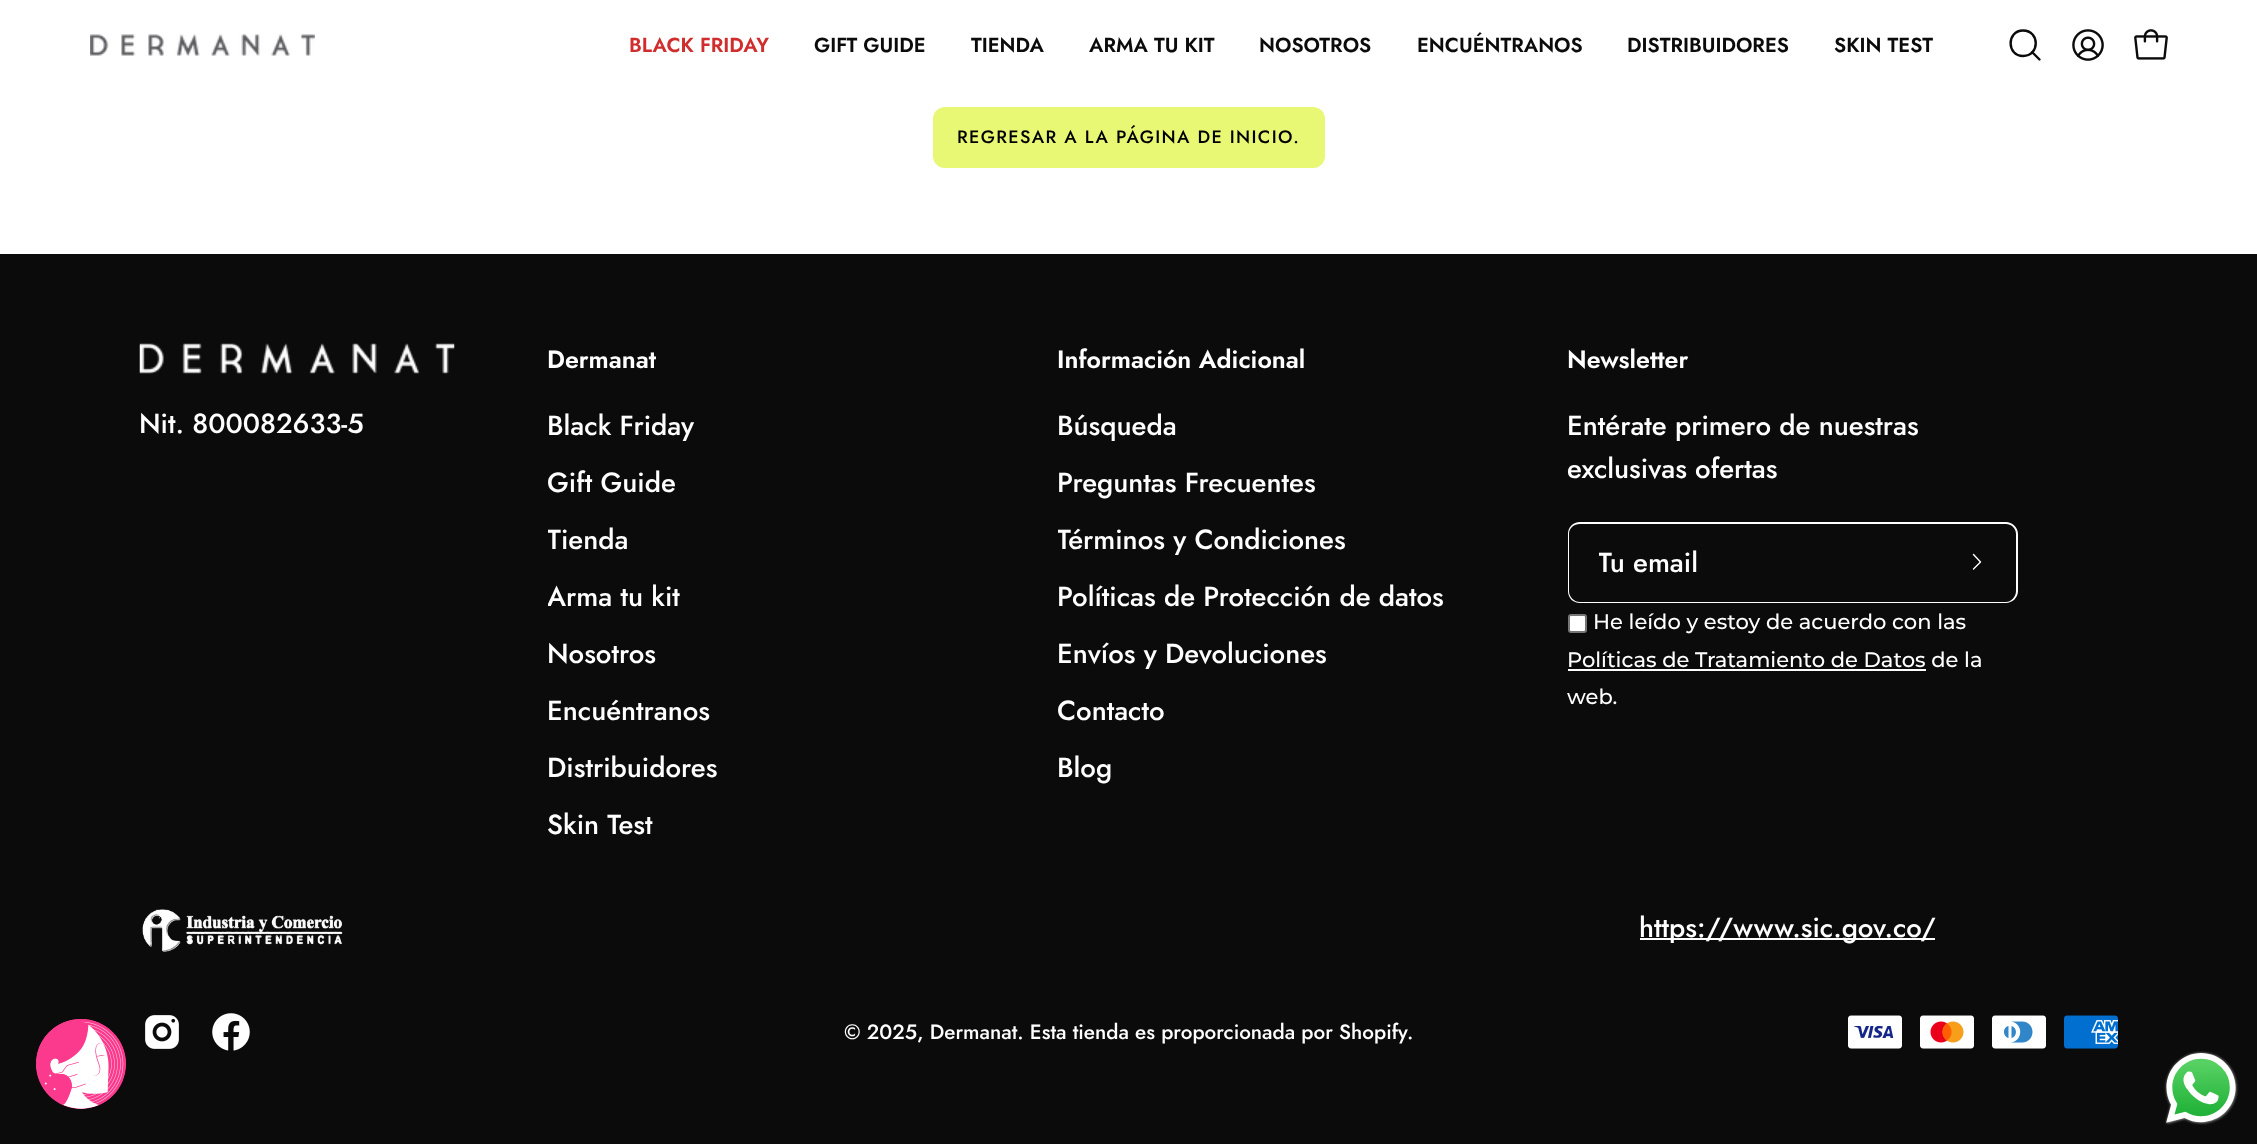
<!DOCTYPE html>
<meta charset="utf-8">
<style>body { margin: 0 } canvas { display: block }</style>
<canvas id="canvas" width="2257" height="1144"></canvas>
<img id="img1" src="img_01.png" hidden>
<img id="img2" src="img_02.png" hidden>
<img id="img3" src="img_03.png" hidden>
<img id="img4" src="img_04.png" hidden>
<img id="img5" src="img_05.png" hidden>
<img id="img6" src="img_06.png" hidden>
<img id="img7" src="img_07.png" hidden>
<img id="img8" src="img_08.png" hidden>
<img id="img9" src="img_09.png" hidden>
<img id="img10" src="img_10.png" hidden>
<img id="img11" src="img_11.png" hidden>
<img id="img12" src="img_12.png" hidden>
<img id="img13" src="img_13.png" hidden>
<script>
window.onload = function () {
	const canvas = document.getElementById("canvas");
	const ctx = canvas.getContext("2d");
	ctx.miterLimit = 4;
	ctx.fontKerning = "normal";
	function txt(s, x, y) {
		ctx.fillText(s, x, y);
	}
	function fill(x, y, w, h) {
		ctx.fillRect(x, y, w, h);
	}
	function round(x, y, w, h, r) {
		ctx.beginPath();
		ctx.roundRect(x, y, w, h, r);
		ctx.fill();
	}
	function img(id, x, y, w, h) {
		ctx.drawImage(document.getElementById(id), x, y, w, h);
	}

	ctx.fillStyle = "#FFFFFF";
	fill(0, 0, 2257, 1144);
	img("img1", 90, 34, 225, 22);
	ctx.beginPath();
	ctx.moveTo(2023, 56);
	ctx.bezierCurveTo(2040, 56, 2040, 30.5, 2023, 30.5);
	ctx.bezierCurveTo(2006.5, 30.5, 2006.5, 56, 2023, 56);
	ctx.closePath();
	ctx.moveTo(2032, 52);
	ctx.lineTo(2039.5, 59.5);
	ctx.strokeStyle = "#0B0B0B";
	ctx.lineWidth = 2.4;
	ctx.lineCap = "round";
	ctx.lineJoin = "round";
	ctx.stroke();
	img("img2", 2072, 29, 32, 32);
	img("img3", 2134, 29, 34, 31);
	ctx.fillStyle = "#E8F774";
	round(933, 107, 392, 61, 12);
	ctx.fillStyle = "#0B0B0B";
	fill(0, 254, 2257, 890);
	img("img4", 139, 343, 316, 31);
	ctx.fillStyle = "#FFFFFF";
	ctx.beginPath();
	ctx.moveTo(1580, 522);
	ctx.lineTo(1936, 522);
	ctx.lineTo(1936, 603);
	ctx.lineTo(1580, 603);
	ctx.bezierCurveTo(1573, 603, 1568, 598, 1568, 591);
	ctx.lineTo(1568, 534);
	ctx.bezierCurveTo(1568, 527, 1573, 522, 1580, 522);
	ctx.closePath();
	ctx.moveTo(1580, 524);
	ctx.lineTo(1936, 524);
	ctx.lineTo(1936, 602);
	ctx.lineTo(1580, 602);
	ctx.bezierCurveTo(1574, 602, 1569, 597, 1569, 591);
	ctx.lineTo(1569, 534);
	ctx.bezierCurveTo(1569, 528, 1574, 524, 1580, 524);
	ctx.closePath();
	ctx.fill("evenodd");
	ctx.beginPath();
	ctx.moveTo(1936, 522);
	ctx.lineTo(2006, 522);
	ctx.bezierCurveTo(2012, 522, 2018, 527, 2018, 534);
	ctx.lineTo(2018, 591);
	ctx.bezierCurveTo(2018, 598, 2012, 603, 2006, 603);
	ctx.lineTo(1936, 603);
	ctx.closePath();
	ctx.moveTo(1936, 524);
	ctx.lineTo(2006, 524);
	ctx.bezierCurveTo(2011, 524, 2016, 528, 2016, 534);
	ctx.lineTo(2016, 591);
	ctx.bezierCurveTo(2016, 597, 2011, 602, 2006, 602);
	ctx.lineTo(1936, 602);
	ctx.closePath();
	ctx.fill("evenodd");
	ctx.beginPath();
	ctx.moveTo(1973.5, 554.5);
	ctx.lineTo(1980.5, 562);
	ctx.lineTo(1973.5, 569);
	ctx.strokeStyle = "#FFFFFF";
	ctx.lineWidth = 1.4;
	ctx.stroke();
	ctx.beginPath();
	ctx.roundRect(1569, 615, 17, 17, 2);
	ctx.fill();
	ctx.strokeStyle = "#767676";
	ctx.lineWidth = 2;
	ctx.lineJoin = "miter";
	ctx.stroke();
	fill(1568, 669, 358, 2);
	img("img5", 142, 909, 201, 43);
	fill(1640, 938, 295, 2);
	img("img6", 145, 1015, 34, 34);
	img("img7", 212, 1013, 38, 38);
	img("img8", 1848, 1015, 54, 34);
	img("img9", 1920, 1015, 54, 34);
	img("img10", 1992, 1015, 54, 34);
	img("img11", 2064, 1015, 54, 34);
	ctx.fillStyle = "#EF3786";
	ctx.beginPath();
	ctx.arc(81, 1064, 45, 0, Math.PI * 2);
	ctx.fill();
	img("img12", 36, 1019, 90, 90);
	img("img13", 2164, 1051, 75, 74);
	ctx.font = "600 20.25px Jost";
	ctx.fillStyle = "#D02E2E";
	txt("BLACK FRIDAY", 629, 52);
	ctx.fillStyle = "#0B0B0B";
	txt("GIFT GUIDE", 814, 52);
	txt("TIENDA", 971, 52);
	txt("ARMA TU KIT", 1089, 52);
	txt("NOSOTROS", 1259, 52);
	txt("ENCUÉNTRANOS", 1417, 52);
	txt("DISTRIBUIDORES", 1627, 52);
	txt("SKIN TEST", 1834, 52);
	ctx.letterSpacing = "1.35px";
	ctx.font = "500 18px Jost";
	ctx.fillStyle = "#000000";
	txt("REGRESAR A LA PÁGINA DE INICIO.", 957, 143);
	ctx.letterSpacing = "0px";
	ctx.font = "500 27.6px Jost";
	ctx.fillStyle = "#FFFFFF";
	txt("Nit. 800082633-5", 139, 433);
	ctx.font = "600 25px Jost";
	txt("Dermanat", 547, 368);
	ctx.font = "500 27.6px Jost";
	txt("Black Friday", 547, 435);
	ctx.save();
	ctx.beginPath();
	ctx.rect(548, 405, 450, 441);
	ctx.clip();
	txt("Gift Guide", 547, 492);
	txt("Tienda", 547, 549);
	txt("Arma tu kit", 547, 606);
	ctx.restore();
	txt("Nosotros", 547, 663);
	txt("Encuéntranos", 547, 720);
	txt("Distribuidores", 547, 777);
	txt("Skin Test", 547, 834);
	ctx.font = "600 25px Jost";
	txt("Información Adicional", 1057, 368);
	ctx.font = "500 27.6px Jost";
	txt("Búsqueda", 1057, 435);
	txt("Preguntas Frecuentes", 1057, 492);
	ctx.save();
	ctx.beginPath();
	ctx.rect(1058, 405, 450, 384);
	ctx.clip();
	txt("Términos y Condiciones", 1057, 549);
	ctx.restore();
	txt("Políticas de Protección de datos", 1057, 606);
	txt("Envíos y Devoluciones", 1057, 663);
	ctx.save();
	ctx.beginPath();
	ctx.rect(1058, 405, 450, 384);
	ctx.clip();
	txt("Contacto", 1057, 720);
	ctx.restore();
	txt("Blog", 1057, 777);
	ctx.font = "600 25px Jost";
	txt("Newsletter", 1567, 368);
	ctx.font = "500 27.6px Jost";
	txt("Entérate primero de nuestras", 1567, 435);
	txt("exclusivas ofertas", 1567, 478);
	ctx.save();
	ctx.beginPath();
	ctx.rect(1599, 542, 338, 40);
	ctx.clip();
	txt("Tu email", 1598, 572);
	ctx.restore();
	ctx.font = "500 21px Montserrat";
	txt("He leído y estoy de acuerdo con las", 1593, 629);
	txt("Políticas de Tratamiento de Datos de la", 1567, 667);
	txt("web.", 1567, 704);
	ctx.font = "500 27.6px Jost";
	txt("https://www.sic.gov.co/", 1639, 937);
	ctx.font = "500 20.7px Jost";
	txt("© 2025, Dermanat. Esta tienda es proporcionada por Shopify", 844, 1039);
	txt(".", 1407, 1039);
};
</script>
